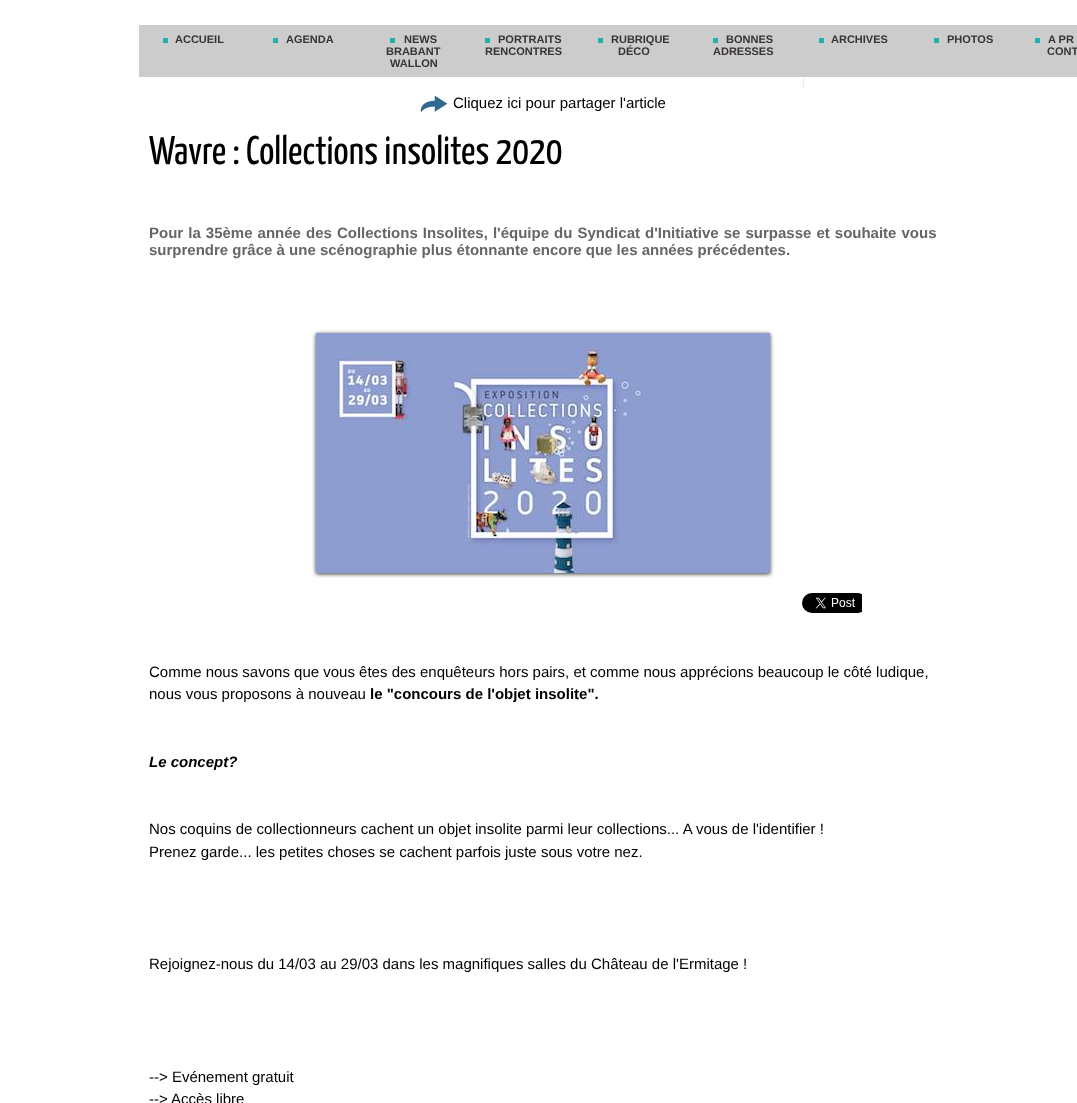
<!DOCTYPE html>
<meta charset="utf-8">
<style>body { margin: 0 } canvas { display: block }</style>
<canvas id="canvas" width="1077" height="1103"></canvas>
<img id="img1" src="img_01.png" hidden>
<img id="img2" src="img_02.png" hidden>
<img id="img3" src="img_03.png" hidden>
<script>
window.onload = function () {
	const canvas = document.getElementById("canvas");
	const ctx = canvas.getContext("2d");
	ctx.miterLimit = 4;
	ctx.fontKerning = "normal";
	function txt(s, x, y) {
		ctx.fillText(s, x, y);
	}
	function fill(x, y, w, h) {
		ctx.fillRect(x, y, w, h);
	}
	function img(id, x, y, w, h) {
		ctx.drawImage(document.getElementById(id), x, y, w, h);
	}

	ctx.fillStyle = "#FFFFFF";
	fill(0, 0, 1077, 1103);
	ctx.fillStyle = "#CCCCCC";
	fill(139, 25, 938, 52);
	ctx.fillStyle = "#20B0B0";
	fill(163, 38, 5, 5);
	fill(273, 38, 5, 5);
	fill(390, 38, 5, 5);
	fill(485, 38, 5, 5);
	fill(598, 38, 5, 5);
	fill(713, 38, 5, 5);
	fill(819, 38, 5, 5);
	fill(934, 38, 5, 5);
	fill(1035, 38, 5, 5);
	ctx.fillStyle = "#EAE9E9";
	fill(803, 77, 1, 10);
	img("img1", 420, 95, 28, 18);
	ctx.fillStyle = "#333333";
	ctx.filter = "blur(2px)";
	ctx.beginPath();
	ctx.rect(316, 334, 454, 240);
	ctx.fill();
	ctx.filter = "none";
	img("img2", 316, 333, 454, 240);
	img("img3", 802, 593, 60, 20);
	ctx.font = "bold 11px Liberation Sans";
	ctx.fillStyle = "#383337";
	txt("ACCUEIL", 175, 43);
	txt("AGENDA", 286, 43);
	txt("NEWS", 404, 43);
	txt("BRABANT", 386, 55);
	txt("WALLON", 390, 67);
	txt("PORTRAITS", 498, 43);
	txt("RENCONTRES", 485, 55);
	txt("RUBRIQUE", 611, 43);
	txt("DÉCO", 618, 55);
	txt("BONNES", 726, 43);
	txt("ADRESSES", 713, 55);
	txt("ARCHIVES", 831, 43);
	txt("PHOTOS", 947, 43);
	txt("A PR", 1048, 43);
	txt("CONT", 1047, 55);
	ctx.font = "15px Liberation Sans";
	ctx.fillStyle = "#000000";
	txt("Cliquez ici pour partager l'article", 453, 108);
	ctx.font = "200 40px Yanone Kaffeesatz";
	txt("Wavre : Collections insolites 2020", 149, 164);
	ctx.wordSpacing = "0.9px";
	ctx.font = "bold 15px Liberation Sans";
	ctx.fillStyle = "#666666";
	txt("Pour la 35ème année des Collections Insolites, l'équipe du Syndicat d'Initiative se surpasse et souhaite vous", 149, 238);
	ctx.wordSpacing = "0px";
	txt("surprendre grâce à une scénographie plus étonnante encore que les années précédentes.", 149, 255);
	ctx.font = "15px Liberation Sans";
	ctx.fillStyle = "#000000";
	txt("Comme nous savons que vous êtes des enquêteurs hors pairs, et comme nous apprécions beaucoup le côté ludique,", 149, 677);
	txt("nous vous proposons à nouveau", 149, 699);
	ctx.font = "bold 15px Liberation Sans";
	txt("le \"concours de l'objet insolite\".", 370, 699);
	ctx.font = "italic bold 15px Liberation Sans";
	txt("Le concept?", 149, 767);
	ctx.font = "15px Liberation Sans";
	txt("Nos coquins de collectionneurs cachent un objet insolite parmi leur collections... A vous de l'identifier !", 149, 834);
	txt("Prenez garde... les petites choses se cachent parfois juste sous votre nez.", 149, 857);
	txt("Rejoignez-nous du 14/03 au 29/03 dans les magnifiques salles du Château de l'Ermitage !", 149, 969);
	txt("--> Evénement gratuit", 149, 1082);
	txt("--> Accès libre", 149, 1104);
};
</script>
